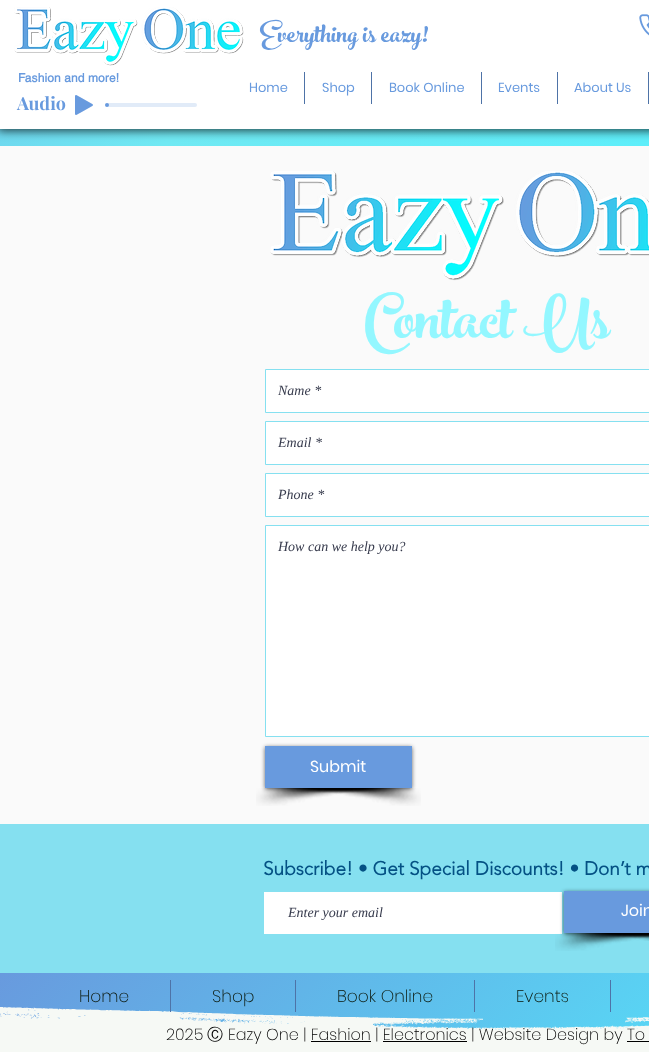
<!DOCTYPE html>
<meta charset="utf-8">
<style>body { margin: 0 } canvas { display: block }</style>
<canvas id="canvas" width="649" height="1052"></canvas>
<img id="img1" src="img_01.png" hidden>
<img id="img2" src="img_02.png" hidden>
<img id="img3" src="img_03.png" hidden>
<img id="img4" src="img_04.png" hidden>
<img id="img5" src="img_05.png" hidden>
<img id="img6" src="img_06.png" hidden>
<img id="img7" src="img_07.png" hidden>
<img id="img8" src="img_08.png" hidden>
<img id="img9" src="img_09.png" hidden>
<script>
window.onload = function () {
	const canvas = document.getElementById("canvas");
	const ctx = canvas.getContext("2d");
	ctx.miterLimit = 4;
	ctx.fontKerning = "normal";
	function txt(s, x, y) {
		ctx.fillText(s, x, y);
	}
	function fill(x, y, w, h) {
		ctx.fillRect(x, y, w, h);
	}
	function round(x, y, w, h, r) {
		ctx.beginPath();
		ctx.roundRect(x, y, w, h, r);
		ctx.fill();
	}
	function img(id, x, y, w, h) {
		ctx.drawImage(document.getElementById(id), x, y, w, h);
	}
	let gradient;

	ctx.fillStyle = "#85E0F0";
	fill(0, 0, 649, 1052);
	gradient = ctx.createLinearGradient(82, -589, 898, 228);
	gradient.addColorStop(0, "#689ADE");
	gradient.addColorStop(0.5, "#70E9F3");
	gradient.addColorStop(1, "#51F2FF");
	ctx.fillStyle = gradient;
	fill(0, 129, 649, 17);
	ctx.fillStyle = "#FAFAFA";
	fill(0, 146, 649, 678);
	ctx.fillStyle = "rgba(0, 0, 0, 0.7)";
	ctx.filter = "blur(5px)";
	ctx.beginPath();
	ctx.rect(-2, -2, 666, 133);
	ctx.fill();
	ctx.filter = "none";
	ctx.fillStyle = "#FFFFFF";
	fill(0, 0, 649, 129);
	img("img1", 14, 7, 230, 59);
	img("img2", 639, 14, 10, 22);
	ctx.fillStyle = "#4E73A7";
	fill(304, 72, 1, 32);
	fill(371, 72, 1, 32);
	fill(481, 72, 1, 32);
	fill(557, 72, 1, 32);
	fill(648, 72, 1, 32);
	img("img3", 75, 95, 18, 20);
	ctx.fillStyle = "#E1EBF8";
	round(107, 103, 90, 4, 2);
	ctx.fillStyle = "#689ADE";
	ctx.beginPath();
	ctx.arc(107, 105, 2, 0, Math.PI * 2);
	ctx.fill();
	img("img4", 270, 171, 379, 110);
	ctx.fillStyle = "#FFFFFF";
	ctx.beginPath();
	ctx.rect(265.5, 369.5, 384, 43);
	ctx.fill();
	ctx.strokeStyle = "#85E0F0";
	ctx.stroke();
	ctx.beginPath();
	ctx.rect(265.5, 421.5, 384, 43);
	ctx.fill();
	ctx.stroke();
	ctx.beginPath();
	ctx.rect(265.5, 473.5, 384, 43);
	ctx.fill();
	ctx.stroke();
	ctx.beginPath();
	ctx.rect(265.5, 525.5, 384, 211);
	ctx.fill();
	ctx.stroke();
	img("img5", 256, 788, 154, 18);
	img("img6", 267, 788, 154, 18);
	ctx.fillStyle = "rgba(0, 0, 0, 0.6)";
	ctx.filter = "blur(2px)";
	ctx.beginPath();
	ctx.rect(265, 747, 147, 42);
	ctx.fill();
	ctx.filter = "none";
	ctx.fillStyle = "#689ADE";
	fill(265, 746, 147, 42);
	ctx.fillStyle = "#FFFFFF";
	fill(264, 892, 298, 42);
	img("img7", 555, 933, 94, 18);
	img("img8", 566, 933, 83, 8);
	ctx.fillStyle = "rgba(0, 0, 0, 0.6)";
	ctx.filter = "blur(2px)";
	ctx.beginPath();
	ctx.rect(564, 892, 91, 42);
	ctx.fill();
	ctx.filter = "none";
	ctx.fillStyle = "#689ADE";
	fill(564, 891, 85, 42);
	gradient = ctx.createLinearGradient(225, 748, 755, 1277);
	gradient.addColorStop(0, "#689ADE");
	gradient.addColorStop(1, "#51F2FF");
	ctx.fillStyle = gradient;
	fill(0, 973, 649, 57);
	img("img9", 0, 1007, 649, 45);
	ctx.fillStyle = "#4E73A7";
	fill(170, 980, 1, 32);
	fill(295, 980, 1, 32);
	fill(474, 980, 1, 32);
	fill(610, 980, 1, 32);
	ctx.fillStyle = "#000000";
	fill(311, 1041, 60, 1);
	fill(383, 1041, 84, 1);
	fill(627, 1041, 22, 1);
	ctx.letterSpacing = "0.4px";
	ctx.font = "37px 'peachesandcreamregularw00'";
	ctx.fillStyle = "#689ADE";
	txt("Everything is eazy!", 260, 42);
	ctx.letterSpacing = "0.1px";
	ctx.font = "bold 12px helvetica";
	txt("Fashion and more!", 18, 82);
	ctx.letterSpacing = "0px";
	ctx.font = "13px Poppins";
	txt("Home", 249, 92);
	txt("Shop", 322, 92);
	txt("Book Online", 389, 92);
	txt("Events", 498, 92);
	txt("About Us", 574, 92);
	ctx.font = "bold 18px Playfair Display";
	txt("Audio", 17, 110);
	ctx.font = "90px 'peachesandcreamregularw00'";
	ctx.fillStyle = "#93F7FF";
	txt("Contact Us", 365, 338);
	ctx.font = "italic 14px Liberation Serif";
	ctx.fillStyle = "#373B4D";
	txt("Name *", 278, 395);
	txt("Email *", 278, 447);
	txt("Phone *", 278, 499);
	txt("How can we help you?", 278, 551);
	ctx.font = "16px Poppins";
	ctx.fillStyle = "#FFFFFF";
	txt("Submit", 310, 772);
	ctx.font = "bold 19px 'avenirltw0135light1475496'";
	ctx.fillStyle = "#045184";
	txt("Subscribe! • Get Special Discounts! • Don’t m", 263, 875);
	ctx.font = "italic 14px Liberation Serif";
	ctx.fillStyle = "#373B4D";
	txt("Enter your email", 288, 917);
	ctx.font = "16px Poppins";
	ctx.fillStyle = "#FFFFFF";
	txt("Join", 621, 916);
	ctx.font = "200 17px Poppins";
	ctx.fillStyle = "#091405";
	txt("Home", 79, 1002);
	txt("Shop", 212, 1002);
	txt("Book Online", 337, 1002);
	txt("Events", 516, 1002);
	ctx.font = "200 16px Poppins";
	ctx.fillStyle = "#000000";
	txt("2025", 166, 1040);
	ctx.font = "500 16px WenQuanYi Zen Hei";
	txt("Ⓒ", 207, 1040);
	ctx.font = "200 16px Poppins";
	txt("Eazy One | Fashion | Electronics | Website Design by To", 228, 1040);
};
</script>
